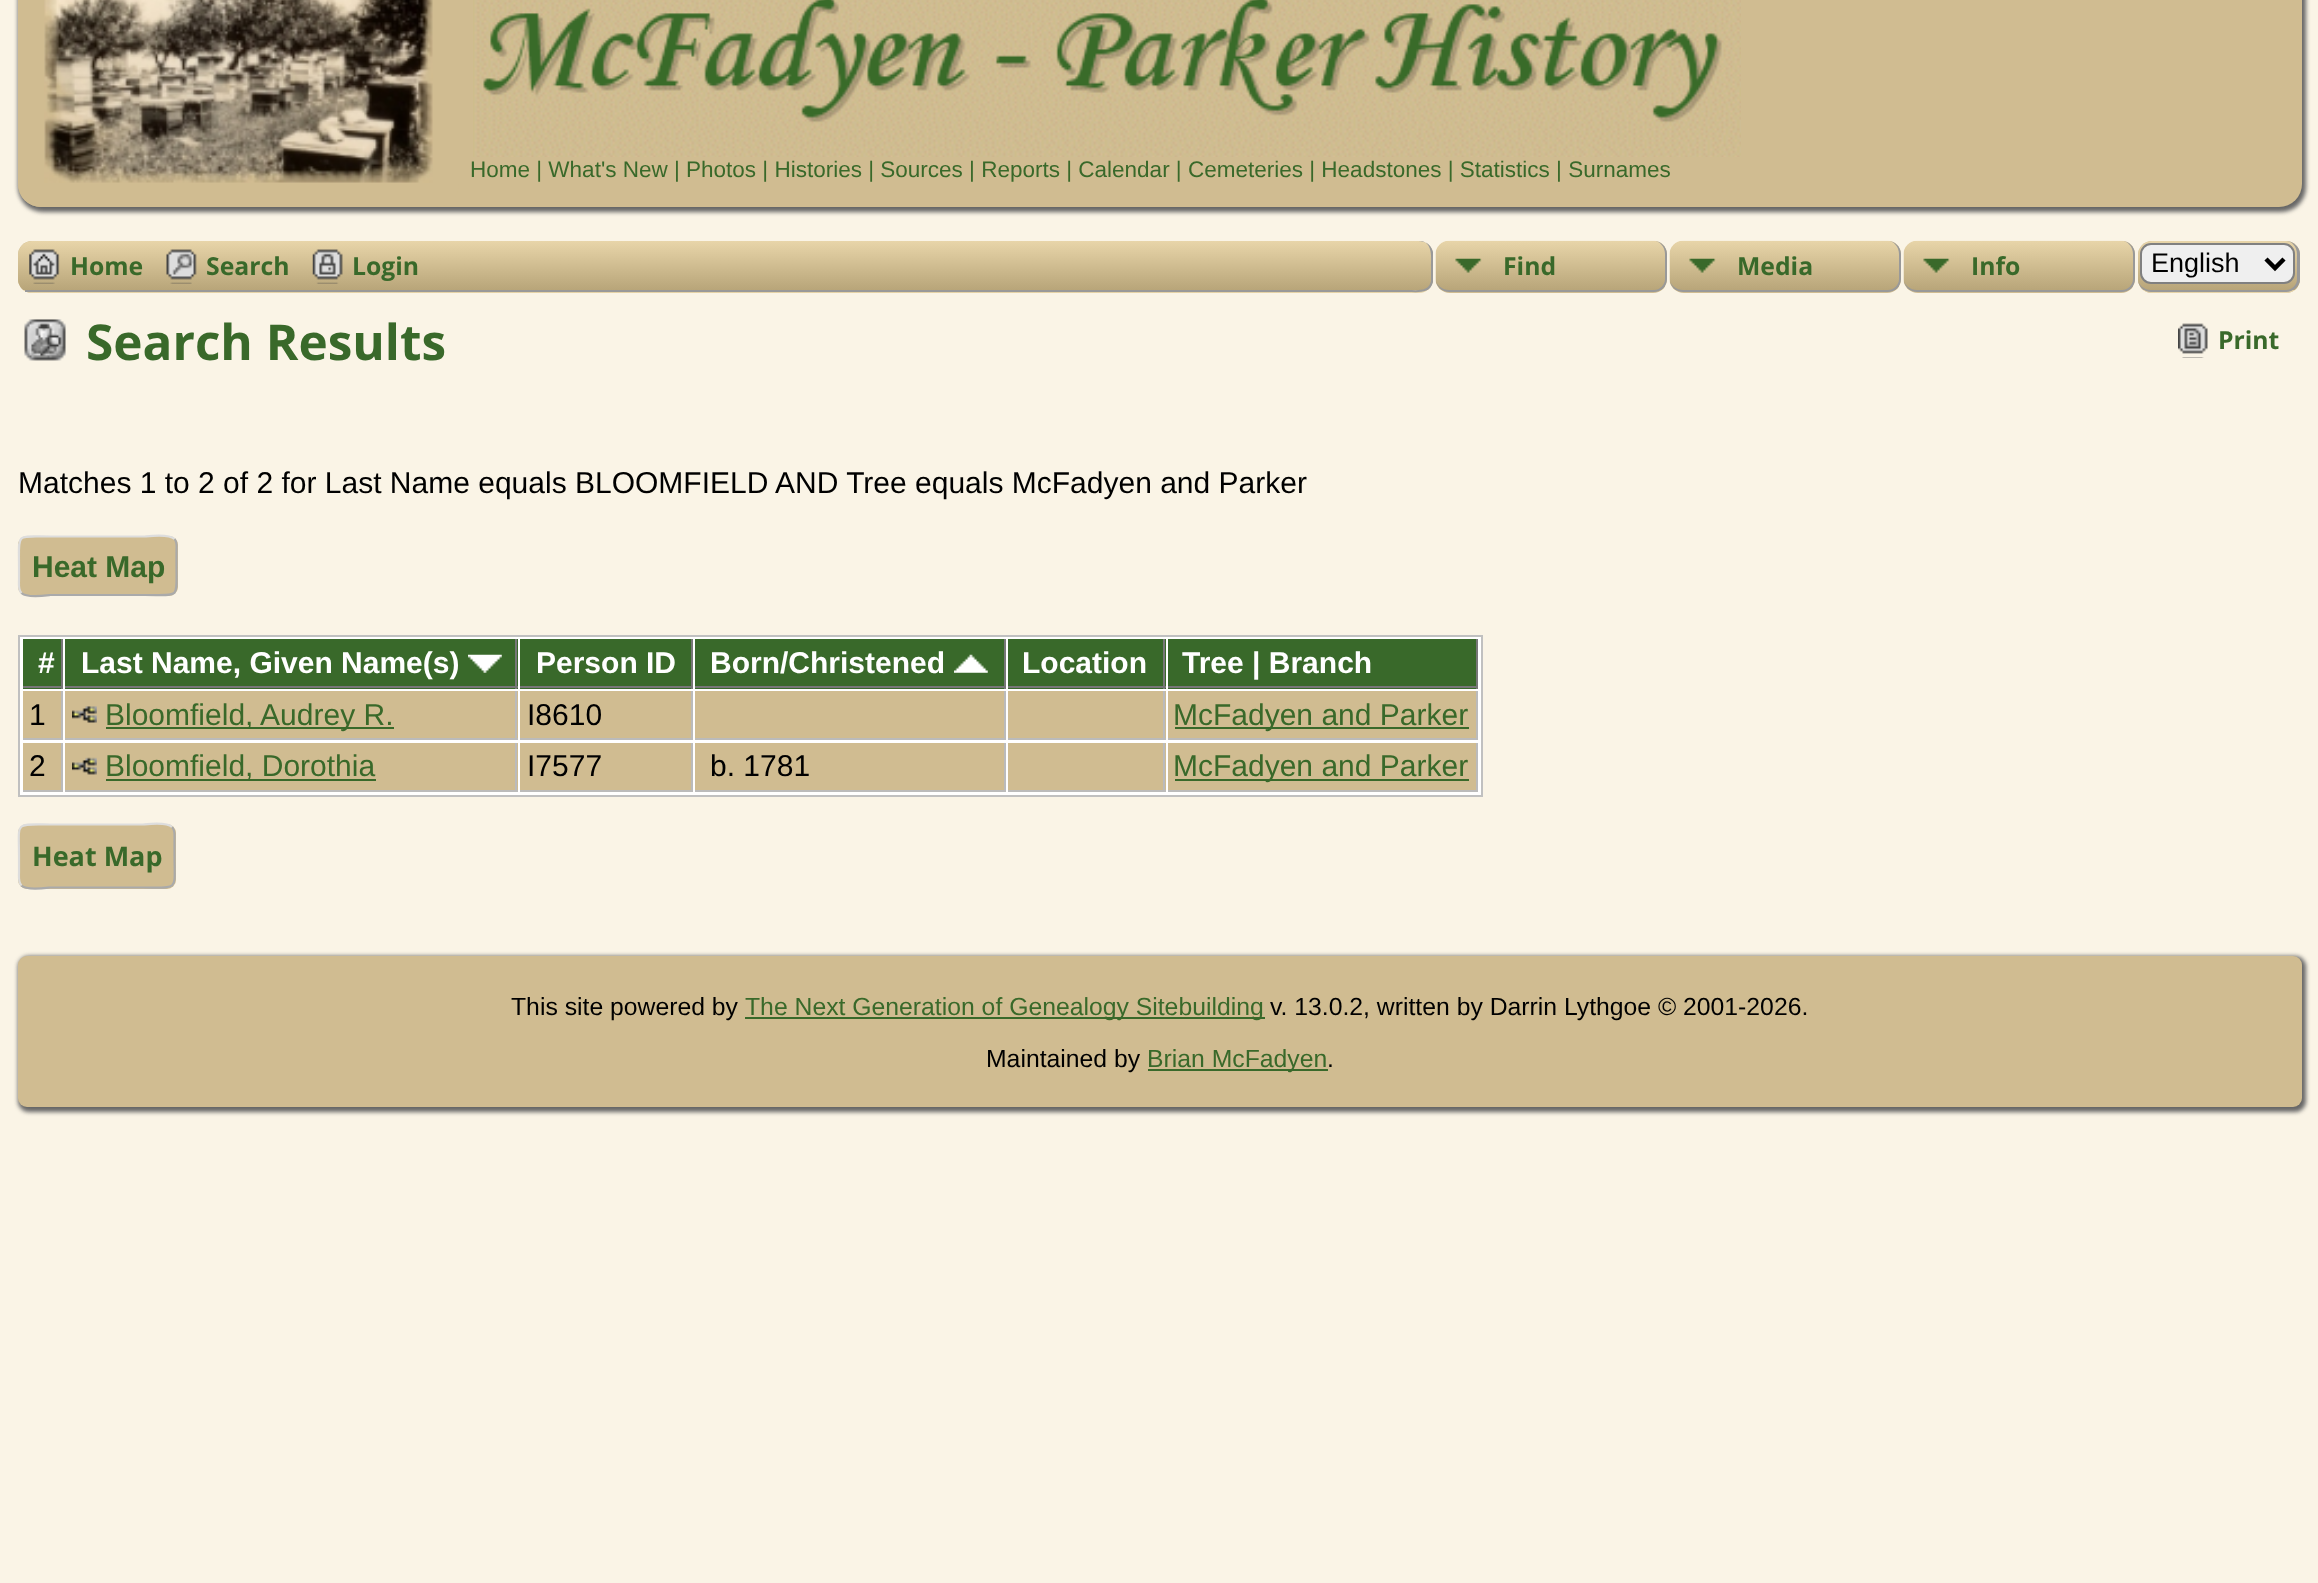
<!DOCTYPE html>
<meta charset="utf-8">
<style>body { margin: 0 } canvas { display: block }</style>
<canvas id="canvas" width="2318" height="1583"></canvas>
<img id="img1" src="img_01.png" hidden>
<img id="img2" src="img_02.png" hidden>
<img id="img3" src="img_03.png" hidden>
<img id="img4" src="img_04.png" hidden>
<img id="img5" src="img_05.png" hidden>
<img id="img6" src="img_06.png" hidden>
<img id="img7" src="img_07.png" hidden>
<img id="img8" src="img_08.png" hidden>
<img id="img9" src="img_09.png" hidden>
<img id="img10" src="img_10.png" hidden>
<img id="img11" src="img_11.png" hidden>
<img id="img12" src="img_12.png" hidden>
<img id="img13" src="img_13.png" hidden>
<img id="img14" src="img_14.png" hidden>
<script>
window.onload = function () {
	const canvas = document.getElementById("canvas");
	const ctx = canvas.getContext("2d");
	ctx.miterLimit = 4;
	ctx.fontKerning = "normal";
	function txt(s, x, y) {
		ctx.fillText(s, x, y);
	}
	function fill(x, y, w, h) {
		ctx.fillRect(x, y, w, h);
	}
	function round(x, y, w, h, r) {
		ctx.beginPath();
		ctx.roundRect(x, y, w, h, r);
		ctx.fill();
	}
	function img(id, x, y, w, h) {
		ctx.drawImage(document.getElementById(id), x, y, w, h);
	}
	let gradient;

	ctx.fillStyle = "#FAF4E6";
	fill(0, 0, 2318, 1583);
	ctx.fillStyle = "#666666";
	ctx.filter = "blur(2px)";
	ctx.beginPath();
	ctx.roundRect(18, -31, 2288, 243, 25);
	ctx.fill();
	ctx.filter = "none";
	ctx.fillStyle = "#D0BC91";
	round(18, -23, 2284, 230, 23);
	round(18, -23, 441, 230, 23);
	img("img1", 44, 0, 389, 183);
	img("img2", 473, 0, 1268, 157);
	round(18, 241, 2284, 52, 14);
	ctx.save();
	ctx.beginPath();
	ctx.roundRect(18, 241, 2284, 52, 14);
	ctx.clip();
	gradient = ctx.createLinearGradient(1160, 241, 1160, 290);
	gradient.addColorStop(0, "#E8D5A9");
	gradient.addColorStop(1, "#B8A579");
	ctx.fillStyle = gradient;
	ctx.beginPath();
	ctx.roundRect(18, 241, 2284, 49, [14, 14, 0, 0]);
	ctx.fill();
	gradient = ctx.createLinearGradient(1160, 290, 1160, 340);
	gradient.addColorStop(0, "#E8D5A9");
	gradient.addColorStop(1, "#B8A579");
	ctx.fillStyle = gradient;
	fill(18, 290, 1391, 3);
	ctx.restore();
	ctx.fillStyle = "#999999";
	fill(25, 290, 1383, 2);
	img("img3", 29, 249, 31, 35);
	img("img4", 166, 249, 31, 35);
	img("img5", 312, 249, 31, 35);
	ctx.fillStyle = "#FAF4E6";
	fill(1419, 241, 883, 52);
	ctx.save();
	ctx.beginPath();
	ctx.roundRect(1409, 241, 24, 52, [0, 14, 14, 0]);
	ctx.clip();
	gradient = ctx.createLinearGradient(1420, 241, 1420, 290);
	gradient.addColorStop(0, "#E8D5A9");
	gradient.addColorStop(1, "#B8A579");
	ctx.fillStyle = gradient;
	fill(1409, 241, 24, 49);
	gradient = ctx.createLinearGradient(1420, 290, 1420, 340);
	gradient.addColorStop(0, "#E8D5A9");
	gradient.addColorStop(1, "#B8A579");
	ctx.fillStyle = gradient;
	fill(1409, 290, 24, 3);
	ctx.restore();
	ctx.fillStyle = "#999999";
	ctx.beginPath();
	ctx.moveTo(1408, 241);
	ctx.bezierCurveTo(1418, 241, 1430, 239, 1433, 252);
	ctx.lineTo(1433, 282);
	ctx.bezierCurveTo(1430, 294, 1418, 292, 1408, 292);
	ctx.closePath();
	ctx.moveTo(1408, 241);
	ctx.lineTo(1422, 241);
	ctx.bezierCurveTo(1433, 244, 1431, 258, 1431, 267);
	ctx.lineTo(1431, 281);
	ctx.bezierCurveTo(1429, 292, 1417, 290, 1408, 290);
	ctx.closePath();
	ctx.fill("evenodd");
	ctx.fillStyle = "#D0BC91";
	round(1436, 241, 231, 52, 14);
	img("img6", 1435, 240, 230, 51);
	ctx.fillStyle = "#999999";
	ctx.beginPath();
	ctx.moveTo(1449, 241);
	ctx.lineTo(1654, 241);
	ctx.bezierCurveTo(1661, 241, 1667, 247, 1667, 254);
	ctx.lineTo(1667, 279);
	ctx.bezierCurveTo(1667, 286, 1661, 292, 1654, 292);
	ctx.lineTo(1449, 292);
	ctx.bezierCurveTo(1442, 292, 1436, 286, 1436, 279);
	ctx.lineTo(1436, 254);
	ctx.bezierCurveTo(1436, 247, 1442, 241, 1449, 241);
	ctx.closePath();
	ctx.moveTo(1449, 241);
	ctx.lineTo(1654, 241);
	ctx.bezierCurveTo(1660, 241, 1665, 247, 1665, 254);
	ctx.lineTo(1665, 279);
	ctx.bezierCurveTo(1665, 285, 1660, 290, 1654, 290);
	ctx.lineTo(1449, 290);
	ctx.bezierCurveTo(1442, 290, 1436, 285, 1436, 279);
	ctx.lineTo(1436, 254);
	ctx.bezierCurveTo(1436, 247, 1442, 241, 1449, 241);
	ctx.closePath();
	ctx.fill("evenodd");
	ctx.fillStyle = "#D0BC91";
	round(1670, 241, 231, 52, 14);
	img("img7", 1669, 240, 230, 51);
	ctx.fillStyle = "#999999";
	ctx.beginPath();
	ctx.moveTo(1683, 241);
	ctx.lineTo(1888, 241);
	ctx.bezierCurveTo(1895, 241, 1901, 247, 1901, 254);
	ctx.lineTo(1901, 279);
	ctx.bezierCurveTo(1901, 286, 1895, 292, 1888, 292);
	ctx.lineTo(1683, 292);
	ctx.bezierCurveTo(1676, 292, 1670, 286, 1670, 279);
	ctx.lineTo(1670, 254);
	ctx.bezierCurveTo(1670, 247, 1676, 241, 1683, 241);
	ctx.closePath();
	ctx.moveTo(1683, 241);
	ctx.lineTo(1888, 241);
	ctx.bezierCurveTo(1894, 241, 1899, 247, 1899, 254);
	ctx.lineTo(1899, 279);
	ctx.bezierCurveTo(1899, 285, 1894, 290, 1888, 290);
	ctx.lineTo(1683, 290);
	ctx.bezierCurveTo(1676, 290, 1670, 285, 1670, 279);
	ctx.lineTo(1670, 254);
	ctx.bezierCurveTo(1670, 247, 1676, 241, 1683, 241);
	ctx.closePath();
	ctx.fill("evenodd");
	ctx.fillStyle = "#D0BC91";
	round(1904, 241, 231, 52, 14);
	img("img8", 1903, 240, 230, 51);
	ctx.fillStyle = "#999999";
	ctx.beginPath();
	ctx.moveTo(1917, 241);
	ctx.lineTo(2122, 241);
	ctx.bezierCurveTo(2129, 241, 2135, 247, 2135, 254);
	ctx.lineTo(2135, 279);
	ctx.bezierCurveTo(2135, 286, 2129, 292, 2122, 292);
	ctx.lineTo(1917, 292);
	ctx.bezierCurveTo(1910, 292, 1904, 286, 1904, 279);
	ctx.lineTo(1904, 254);
	ctx.bezierCurveTo(1904, 247, 1910, 241, 1917, 241);
	ctx.closePath();
	ctx.moveTo(1917, 241);
	ctx.lineTo(2122, 241);
	ctx.bezierCurveTo(2128, 241, 2133, 247, 2133, 254);
	ctx.lineTo(2133, 279);
	ctx.bezierCurveTo(2133, 285, 2128, 290, 2122, 290);
	ctx.lineTo(1917, 290);
	ctx.bezierCurveTo(1910, 290, 1904, 285, 1904, 279);
	ctx.lineTo(1904, 254);
	ctx.bezierCurveTo(1904, 247, 1910, 241, 1917, 241);
	ctx.closePath();
	ctx.fill("evenodd");
	ctx.fillStyle = "#D0BC91";
	round(2138, 241, 162, 52, 14);
	ctx.save();
	ctx.beginPath();
	ctx.roundRect(2138, 241, 162, 52, 14);
	ctx.clip();
	gradient = ctx.createLinearGradient(2217, 241, 2217, 290);
	gradient.addColorStop(0, "#E8D5A9");
	gradient.addColorStop(1, "#B8A579");
	ctx.fillStyle = gradient;
	ctx.beginPath();
	ctx.roundRect(2138, 241, 162, 49, [14, 14, 0, 0]);
	ctx.fill();
	gradient = ctx.createLinearGradient(2217, 290, 2217, 340);
	gradient.addColorStop(0, "#E8D5A9");
	gradient.addColorStop(1, "#B8A579");
	ctx.fillStyle = gradient;
	fill(2138, 290, 162, 3);
	ctx.restore();
	ctx.fillStyle = "#999999";
	ctx.beginPath();
	ctx.moveTo(2151, 241);
	ctx.lineTo(2286, 241);
	ctx.bezierCurveTo(2293, 241, 2300, 247, 2300, 254);
	ctx.lineTo(2300, 279);
	ctx.bezierCurveTo(2300, 286, 2293, 292, 2286, 292);
	ctx.lineTo(2151, 292);
	ctx.bezierCurveTo(2144, 292, 2138, 286, 2138, 279);
	ctx.lineTo(2138, 254);
	ctx.bezierCurveTo(2138, 247, 2144, 241, 2151, 241);
	ctx.closePath();
	ctx.moveTo(2151, 241);
	ctx.lineTo(2286, 241);
	ctx.bezierCurveTo(2292, 241, 2297, 247, 2297, 254);
	ctx.lineTo(2297, 279);
	ctx.bezierCurveTo(2297, 285, 2292, 290, 2286, 290);
	ctx.lineTo(2151, 290);
	ctx.bezierCurveTo(2144, 290, 2138, 285, 2138, 279);
	ctx.lineTo(2138, 254);
	ctx.bezierCurveTo(2138, 247, 2144, 241, 2151, 241);
	ctx.closePath();
	ctx.fill("evenodd");
	ctx.fillStyle = "#EFEFEF";
	ctx.beginPath();
	ctx.roundRect(2141, 244, 153, 39, 10);
	ctx.fill();
	ctx.strokeStyle = "#808080";
	ctx.lineWidth = 2;
	ctx.stroke();
	ctx.beginPath();
	ctx.moveTo(2266, 259);
	ctx.lineTo(2275, 268);
	ctx.lineTo(2284, 259);
	ctx.strokeStyle = "#000000";
	ctx.lineWidth = 4.5;
	ctx.stroke();
	img("img9", 24, 319, 42, 42);
	img("img10", 2178, 323, 30, 35);
	ctx.fillStyle = "#D0BC91";
	round(18, 536, 160, 60, 9);
	ctx.beginPath();
	ctx.moveTo(174.5, 539);
	ctx.bezierCurveTo(177.5, 542, 176.5, 547.5, 176.5, 551.5);
	ctx.lineTo(176.5, 566);
	ctx.bezierCurveTo(176.5, 599.5, 180.5, 595, 145, 595);
	ctx.lineTo(50.5, 595);
	ctx.bezierCurveTo(49.5, 595, 27, 598.5, 21.5, 593);
	ctx.strokeStyle = "#AAAAAA";
	ctx.lineWidth = 2.2;
	ctx.stroke();
	ctx.beginPath();
	ctx.moveTo(21.5, 593);
	ctx.bezierCurveTo(18, 589.5, 19, 584.5, 19, 580);
	ctx.lineTo(19, 566);
	ctx.bezierCurveTo(19, 532, 15, 536.5, 50.5, 536.5);
	ctx.lineTo(145, 536.5);
	ctx.bezierCurveTo(146, 536.5, 168.5, 533.5, 174.5, 539);
	ctx.strokeStyle = "#DDDDDD";
	ctx.stroke();
	ctx.fillStyle = "#FFFFFF";
	ctx.beginPath();
	ctx.rect(19, 636, 1463, 160);
	ctx.fill();
	ctx.strokeStyle = "#C0C0C0";
	ctx.lineWidth = 2;
	ctx.stroke();
	ctx.fillStyle = "#39692A";
	fill(23, 639, 38, 50);
	ctx.fillStyle = "#777777";
	fill(61, 639, 2, 50);
	fill(23, 686, 40, 2);
	ctx.fillStyle = "#39692A";
	fill(65, 639, 453, 50);
	ctx.fillStyle = "#777777";
	fill(515, 639, 2, 50);
	fill(65, 686, 453, 2);
	img("img11", 468, 654, 34, 19);
	ctx.fillStyle = "#39692A";
	fill(520, 639, 171, 50);
	ctx.fillStyle = "#777777";
	fill(691, 639, 2, 50);
	fill(520, 686, 173, 2);
	ctx.fillStyle = "#39692A";
	fill(695, 639, 309, 50);
	ctx.fillStyle = "#777777";
	fill(1004, 639, 2, 50);
	fill(695, 686, 311, 2);
	img("img12", 954, 654, 34, 19);
	ctx.fillStyle = "#39692A";
	fill(1008, 639, 158, 50);
	ctx.fillStyle = "#777777";
	fill(1163, 639, 2, 50);
	fill(1008, 686, 158, 2);
	ctx.fillStyle = "#39692A";
	fill(1168, 639, 308, 50);
	ctx.fillStyle = "#777777";
	fill(1476, 639, 2, 50);
	fill(1168, 686, 310, 2);
	ctx.fillStyle = "#D0BC91";
	fill(23, 691, 38, 47);
	ctx.fillStyle = "#BBBBBB";
	fill(61, 691, 2, 49);
	fill(23, 738, 40, 2);
	ctx.fillStyle = "#D0BC91";
	fill(65, 691, 453, 47);
	ctx.fillStyle = "#BBBBBB";
	fill(515, 691, 2, 49);
	fill(65, 738, 453, 2);
	img("img13", 72, 706, 25, 17);
	ctx.fillStyle = "#39692A";
	fill(106, 727, 288, 2);
	ctx.fillStyle = "#D0BC91";
	fill(520, 691, 171, 47);
	ctx.fillStyle = "#BBBBBB";
	fill(691, 691, 2, 49);
	fill(520, 738, 173, 2);
	ctx.fillStyle = "#D0BC91";
	fill(695, 691, 309, 47);
	ctx.fillStyle = "#BBBBBB";
	fill(1004, 691, 2, 49);
	fill(695, 738, 311, 2);
	ctx.fillStyle = "#D0BC91";
	fill(1008, 691, 158, 47);
	ctx.fillStyle = "#BBBBBB";
	fill(1163, 691, 2, 49);
	fill(1008, 738, 158, 2);
	ctx.fillStyle = "#D0BC91";
	fill(1168, 691, 308, 47);
	ctx.fillStyle = "#BBBBBB";
	fill(1476, 691, 2, 49);
	fill(1168, 738, 310, 2);
	ctx.fillStyle = "#39692A";
	fill(1175, 727, 294, 2);
	ctx.fillStyle = "#D0BC91";
	fill(23, 743, 38, 47);
	ctx.fillStyle = "#BBBBBB";
	fill(61, 743, 2, 49);
	fill(23, 790, 40, 2);
	ctx.fillStyle = "#D0BC91";
	fill(65, 743, 453, 47);
	ctx.fillStyle = "#BBBBBB";
	fill(515, 743, 2, 49);
	fill(65, 790, 453, 2);
	img("img14", 72, 757, 25, 18);
	ctx.fillStyle = "#39692A";
	fill(106, 779, 270, 2);
	ctx.fillStyle = "#D0BC91";
	fill(520, 743, 171, 47);
	ctx.fillStyle = "#BBBBBB";
	fill(691, 743, 2, 49);
	fill(520, 790, 173, 2);
	ctx.fillStyle = "#D0BC91";
	fill(695, 743, 309, 47);
	ctx.fillStyle = "#BBBBBB";
	fill(1004, 743, 2, 49);
	fill(695, 790, 311, 2);
	ctx.fillStyle = "#D0BC91";
	fill(1008, 743, 158, 47);
	ctx.fillStyle = "#BBBBBB";
	fill(1163, 743, 2, 49);
	fill(1008, 790, 158, 2);
	ctx.fillStyle = "#D0BC91";
	fill(1168, 743, 308, 47);
	ctx.fillStyle = "#BBBBBB";
	fill(1476, 743, 2, 49);
	fill(1168, 790, 310, 2);
	ctx.fillStyle = "#39692A";
	fill(1175, 779, 294, 2);
	ctx.fillStyle = "#D0BC91";
	round(18, 824, 158, 65, 9);
	ctx.beginPath();
	ctx.moveTo(172, 827);
	ctx.bezierCurveTo(175.5, 830.5, 174.5, 836, 174.5, 840.5);
	ctx.lineTo(174.5, 856);
	ctx.bezierCurveTo(174.5, 891.5, 179.5, 887.5, 143, 887.5);
	ctx.lineTo(50, 887.5);
	ctx.bezierCurveTo(49, 887.5, 27, 891, 21.5, 885.5);
	ctx.strokeStyle = "#AAAAAA";
	ctx.lineWidth = 2.2;
	ctx.stroke();
	ctx.beginPath();
	ctx.moveTo(21.5, 885.5);
	ctx.bezierCurveTo(18, 882, 19, 876, 19, 872);
	ctx.lineTo(19, 856);
	ctx.bezierCurveTo(19, 821, 14, 824.5, 50, 824.5);
	ctx.lineTo(143, 824.5);
	ctx.bezierCurveTo(144.5, 824.5, 166.5, 821.5, 172, 827);
	ctx.strokeStyle = "#DDDDDD";
	ctx.stroke();
	ctx.fillStyle = "#666666";
	ctx.filter = "blur(2px)";
	ctx.beginPath();
	ctx.roundRect(18, 956, 2288, 156, 11);
	ctx.fill();
	ctx.filter = "none";
	ctx.fillStyle = "#D0BC91";
	round(18, 956, 2284, 151, 9);
	ctx.fillStyle = "#39692A";
	fill(745, 1017, 520, 2);
	fill(1148, 1069, 180, 2);
	ctx.font = "22.5px Liberation Sans";
	txt("Home | What's New | Photos | Histories | Sources | Reports | Calendar | Cemeteries | Headstones | Statistics | Surnames", 470, 177);
	ctx.font = "bold 24.75px Open Sans";
	txt("Home", 70, 275);
	txt("Search", 206, 275);
	txt("Login", 352, 275);
	txt("Find", 1503, 275);
	txt("Media", 1737, 275);
	txt("Info", 1971, 275);
	ctx.font = "27px Liberation Sans";
	ctx.fillStyle = "#000000";
	txt("English", 2151, 272);
	ctx.font = "bold 49.5px Open Sans";
	ctx.fillStyle = "#39692A";
	txt("Search Results", 86, 360);
	ctx.font = "bold 24.75px Open Sans";
	txt("Print", 2218, 349);
	ctx.font = "30px Liberation Sans";
	ctx.fillStyle = "#000000";
	txt("Matches 1 to 2 of 2 for Last Name equals BLOOMFIELD AND Tree equals McFadyen and Parker", 18, 493);
	ctx.font = "bold 30px Liberation Sans";
	ctx.fillStyle = "#39692A";
	txt("Heat Map", 32, 577);
	ctx.fillStyle = "#FFFFFF";
	txt("#", 38, 673);
	txt("Last Name, Given Name(s)", 81, 673);
	txt("Person ID", 536, 673);
	txt("Born/Christened", 710, 673);
	txt("Location", 1022, 673);
	txt("Tree | Branch", 1182, 673);
	ctx.font = "30px Liberation Sans";
	ctx.fillStyle = "#000000";
	txt("1", 29, 725);
	ctx.fillStyle = "#39692A";
	txt("Bloomfield, Audrey R.", 105, 725);
	ctx.fillStyle = "#000000";
	txt("I8610", 527, 725);
	ctx.fillStyle = "#39692A";
	txt("McFadyen and Parker", 1173, 725);
	ctx.fillStyle = "#000000";
	txt("2", 29, 776);
	ctx.fillStyle = "#39692A";
	txt("Bloomfield, Dorothia", 105, 776);
	ctx.fillStyle = "#000000";
	txt("I7577", 527, 776);
	txt("b. 1781", 710, 776);
	ctx.fillStyle = "#39692A";
	txt("McFadyen and Parker", 1173, 776);
	ctx.font = "bold 27px Open Sans";
	txt("Heat Map", 32, 866);
	ctx.font = "24.75px Liberation Sans";
	ctx.fillStyle = "#000000";
	txt("This site powered by", 511, 1015);
	ctx.fillStyle = "#39692A";
	txt("The Next Generation of Genealogy Sitebuilding", 745, 1015);
	ctx.fillStyle = "#000000";
	txt("v. 13.0.2, written by Darrin Lythgoe © 2001-2026.", 1270, 1015);
	txt("Maintained by", 986, 1067);
	ctx.fillStyle = "#39692A";
	txt("Brian McFadyen", 1147, 1067);
	ctx.fillStyle = "#000000";
	txt(".", 1327, 1067);
};
</script>
